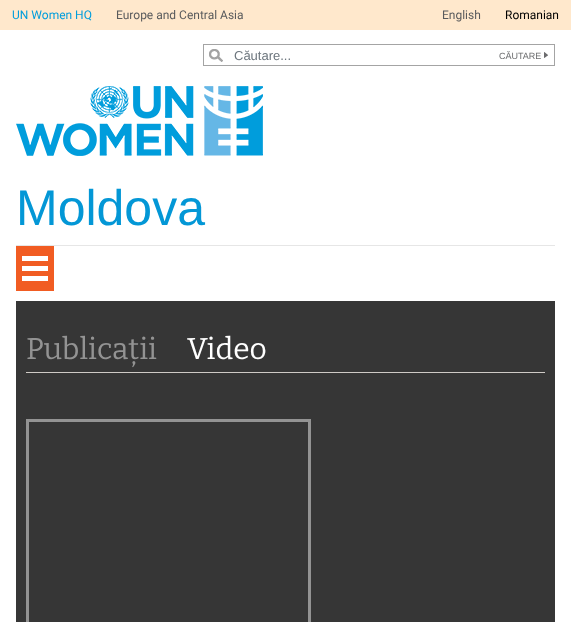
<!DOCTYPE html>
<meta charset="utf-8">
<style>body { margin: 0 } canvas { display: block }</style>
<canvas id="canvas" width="571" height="622"></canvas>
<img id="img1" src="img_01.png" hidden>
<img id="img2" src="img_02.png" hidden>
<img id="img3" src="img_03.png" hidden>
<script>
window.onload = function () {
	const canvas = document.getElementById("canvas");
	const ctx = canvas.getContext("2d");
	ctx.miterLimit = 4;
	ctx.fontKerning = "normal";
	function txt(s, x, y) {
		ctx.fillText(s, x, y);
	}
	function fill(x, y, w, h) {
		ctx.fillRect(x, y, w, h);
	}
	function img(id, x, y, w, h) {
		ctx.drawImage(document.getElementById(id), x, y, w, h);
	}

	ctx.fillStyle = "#FFFFFF";
	fill(0, 0, 571, 622);
	ctx.fillStyle = "#FFE8CC";
	fill(0, 0, 571, 30);
	ctx.strokeStyle = "#A4A4A4";
	ctx.strokeRect(203.5, 44.5, 351, 21);
	img("img1", 209, 49, 14, 13);
	img("img2", 544, 52, 4, 6);
	img("img3", 16, 86, 247, 70);
	ctx.fillStyle = "#E6E6E6";
	fill(16, 245, 539, 1);
	ctx.fillStyle = "#F15C22";
	fill(16, 246, 38, 45);
	ctx.fillStyle = "#FFFFFF";
	fill(22, 276, 26, 5);
	fill(22, 266, 26, 5);
	fill(22, 256, 26, 5);
	ctx.fillStyle = "#363636";
	fill(16, 301, 539, 321);
	ctx.fillStyle = "#CFCBC6";
	fill(26, 372, 519, 1);
	ctx.strokeStyle = "#939393";
	ctx.lineWidth = 3;
	ctx.strokeRect(27.5, 420.5, 282, 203);
	ctx.font = "12px Roboto";
	ctx.fillStyle = "#009DDC";
	txt("UN Women HQ", 12, 19);
	ctx.fillStyle = "#595A5C";
	txt("Europe and Central Asia", 116, 19);
	txt("English", 442, 19);
	ctx.fillStyle = "#000000";
	txt("Romanian", 505, 19);
	ctx.font = "13px Liberation Sans";
	ctx.fillStyle = "#6C757D";
	txt("Căutare...", 234, 60);
	ctx.font = "9px Liberation Sans";
	ctx.fillStyle = "#6C6D6F";
	txt("CĂUTARE", 499, 59);
	ctx.font = "50px Liberation Sans";
	ctx.fillStyle = "#0397D6";
	txt("Moldova", 16, 225);
	ctx.font = "30px Bitter";
	ctx.fillStyle = "#939393";
	txt("Publicații", 26, 359);
	ctx.fillStyle = "#FFFFFF";
	txt("Video", 187, 359);
};
</script>
